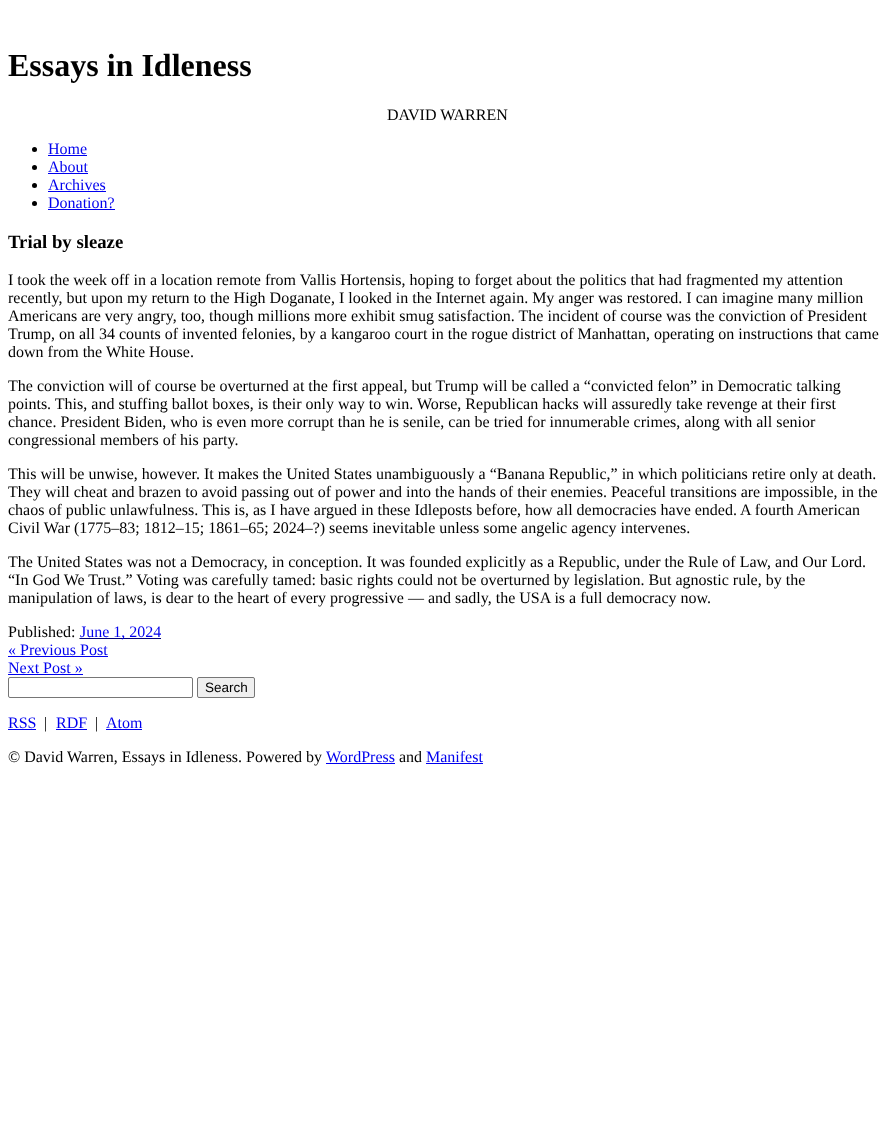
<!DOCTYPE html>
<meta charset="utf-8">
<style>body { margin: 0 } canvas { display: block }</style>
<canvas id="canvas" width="894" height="1141"></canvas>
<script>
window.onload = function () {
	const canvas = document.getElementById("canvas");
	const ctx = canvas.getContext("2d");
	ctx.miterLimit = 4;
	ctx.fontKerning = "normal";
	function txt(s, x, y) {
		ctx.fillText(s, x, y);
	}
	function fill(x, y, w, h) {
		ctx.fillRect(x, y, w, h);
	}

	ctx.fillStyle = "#FFFFFF";
	fill(0, 0, 894, 1141);
	ctx.fillStyle = "#000000";
	ctx.beginPath();
	ctx.arc(34.5, 149.5, 2.5, 0, Math.PI * 2);
	ctx.fill();
	ctx.fillStyle = "#0000EE";
	fill(48, 155, 39, 1);
	ctx.fillStyle = "#000000";
	ctx.beginPath();
	ctx.arc(34.5, 167.5, 2.5, 0, Math.PI * 2);
	ctx.fill();
	ctx.fillStyle = "#0000EE";
	fill(48, 173, 40, 1);
	ctx.fillStyle = "#000000";
	ctx.beginPath();
	ctx.arc(34.5, 185.5, 2.5, 0, Math.PI * 2);
	ctx.fill();
	ctx.fillStyle = "#0000EE";
	fill(48, 191, 58, 1);
	ctx.fillStyle = "#000000";
	ctx.beginPath();
	ctx.arc(34.5, 203.5, 2.5, 0, Math.PI * 2);
	ctx.fill();
	ctx.fillStyle = "#0000EE";
	fill(48, 209, 67, 1);
	fill(80, 638, 81, 1);
	ctx.beginPath();
	ctx.moveTo(79.5, 638.5);
	ctx.lineTo(161, 638.5);
	ctx.strokeStyle = "#000000";
	ctx.setLineDash([1, 1]);
	ctx.stroke();
	fill(8, 656, 100, 1);
	fill(8, 674, 75, 1);
	ctx.beginPath();
	ctx.roundRect(8.5, 677.5, 184, 20, 1.5);
	ctx.strokeStyle = "#767676";
	ctx.setLineDash([]);
	ctx.stroke();
	ctx.fillStyle = "#EFEFEF";
	ctx.beginPath();
	ctx.roundRect(197.5, 677.5, 57, 20, 1.5);
	ctx.fill();
	ctx.stroke();
	ctx.fillStyle = "#0000EE";
	fill(8, 729, 28, 1);
	fill(56, 729, 31, 1);
	fill(106, 729, 36, 1);
	fill(326, 763, 69, 1);
	fill(426, 763, 57, 1);
	ctx.font = "bold 32px Liberation Serif";
	ctx.fillStyle = "#000000";
	txt("Essays in Idleness", 8, 76);
	ctx.font = "16px Liberation Serif";
	txt("DAVID WARREN", 387, 120);
	ctx.fillStyle = "#0000EE";
	txt("Home", 48, 154);
	txt("About", 48, 172);
	txt("Archives", 48, 190);
	txt("Donation?", 48, 208);
	ctx.font = "bold 18.75px Liberation Serif";
	ctx.fillStyle = "#000000";
	txt("Trial by sleaze", 8, 248);
	ctx.font = "16px Liberation Serif";
	txt("I took the week off in a location remote from Vallis Hortensis, hoping to forget about the politics that had fragmented my attention", 8, 285);
	txt("recently, but upon my return to the High Doganate, I looked in the Internet again. My anger was restored. I can imagine many million", 8, 303);
	txt("Americans are very angry, too, though millions more exhibit smug satisfaction. The incident of course was the conviction of President", 8, 321);
	txt("Trump, on all 34 counts of invented felonies, by a kangaroo court in the rogue district of Manhattan, operating on instructions that came", 8, 339);
	txt("down from the White House.", 8, 357);
	txt("The conviction will of course be overturned at the first appeal, but Trump will be called a “convicted felon” in Democratic talking", 8, 391);
	txt("points. This, and stuffing ballot boxes, is their only way to win. Worse, Republican hacks will assuredly take revenge at their first", 8, 409);
	txt("chance. President Biden, who is even more corrupt than he is senile, can be tried for innumerable crimes, along with all senior", 8, 427);
	txt("congressional members of his party.", 8, 445);
	txt("This will be unwise, however. It makes the United States unambiguously a “Banana Republic,” in which politicians retire only at death.", 8, 479);
	txt("They will cheat and brazen to avoid passing out of power and into the hands of their enemies. Peaceful transitions are impossible, in the", 8, 497);
	txt("chaos of public unlawfulness. This is, as I have argued in these Idleposts before, how all democracies have ended. A fourth American", 8, 515);
	txt("Civil War (1775–83; 1812–15; 1861–65; 2024–?) seems inevitable unless some angelic agency intervenes.", 8, 533);
	txt("The United States was not a Democracy, in conception. It was founded explicitly as a Republic, under the Rule of Law, and Our Lord.", 8, 567);
	txt("“In God We Trust.” Voting was carefully tamed: basic rights could not be overturned by legislation. But agnostic rule, by the", 8, 585);
	txt("manipulation of laws, is dear to the heart of every progressive — and sadly, the USA is a full democracy now.", 8, 603);
	txt("Published:", 8, 637);
	ctx.fillStyle = "#0000EE";
	txt("June 1, 2024", 80, 637);
	txt("« Previous Post", 8, 655);
	txt("Next Post »", 8, 673);
	ctx.font = "13.5px Liberation Sans";
	ctx.fillStyle = "#000000";
	txt("Search", 205, 692);
	ctx.font = "16px Liberation Serif";
	ctx.fillStyle = "#0000EE";
	txt("RSS", 8, 728);
	ctx.fillStyle = "#000000";
	txt("|", 44, 728);
	ctx.fillStyle = "#0000EE";
	txt("RDF", 56, 728);
	ctx.fillStyle = "#000000";
	txt("|", 95, 728);
	ctx.fillStyle = "#0000EE";
	txt("Atom", 106, 728);
	ctx.fillStyle = "#000000";
	txt("© David Warren, Essays in Idleness. Powered by", 8, 762);
	ctx.fillStyle = "#0000EE";
	txt("WordPress", 326, 762);
	ctx.fillStyle = "#000000";
	txt("and", 399, 762);
	ctx.fillStyle = "#0000EE";
	txt("Manifest", 426, 762);
};
</script>
